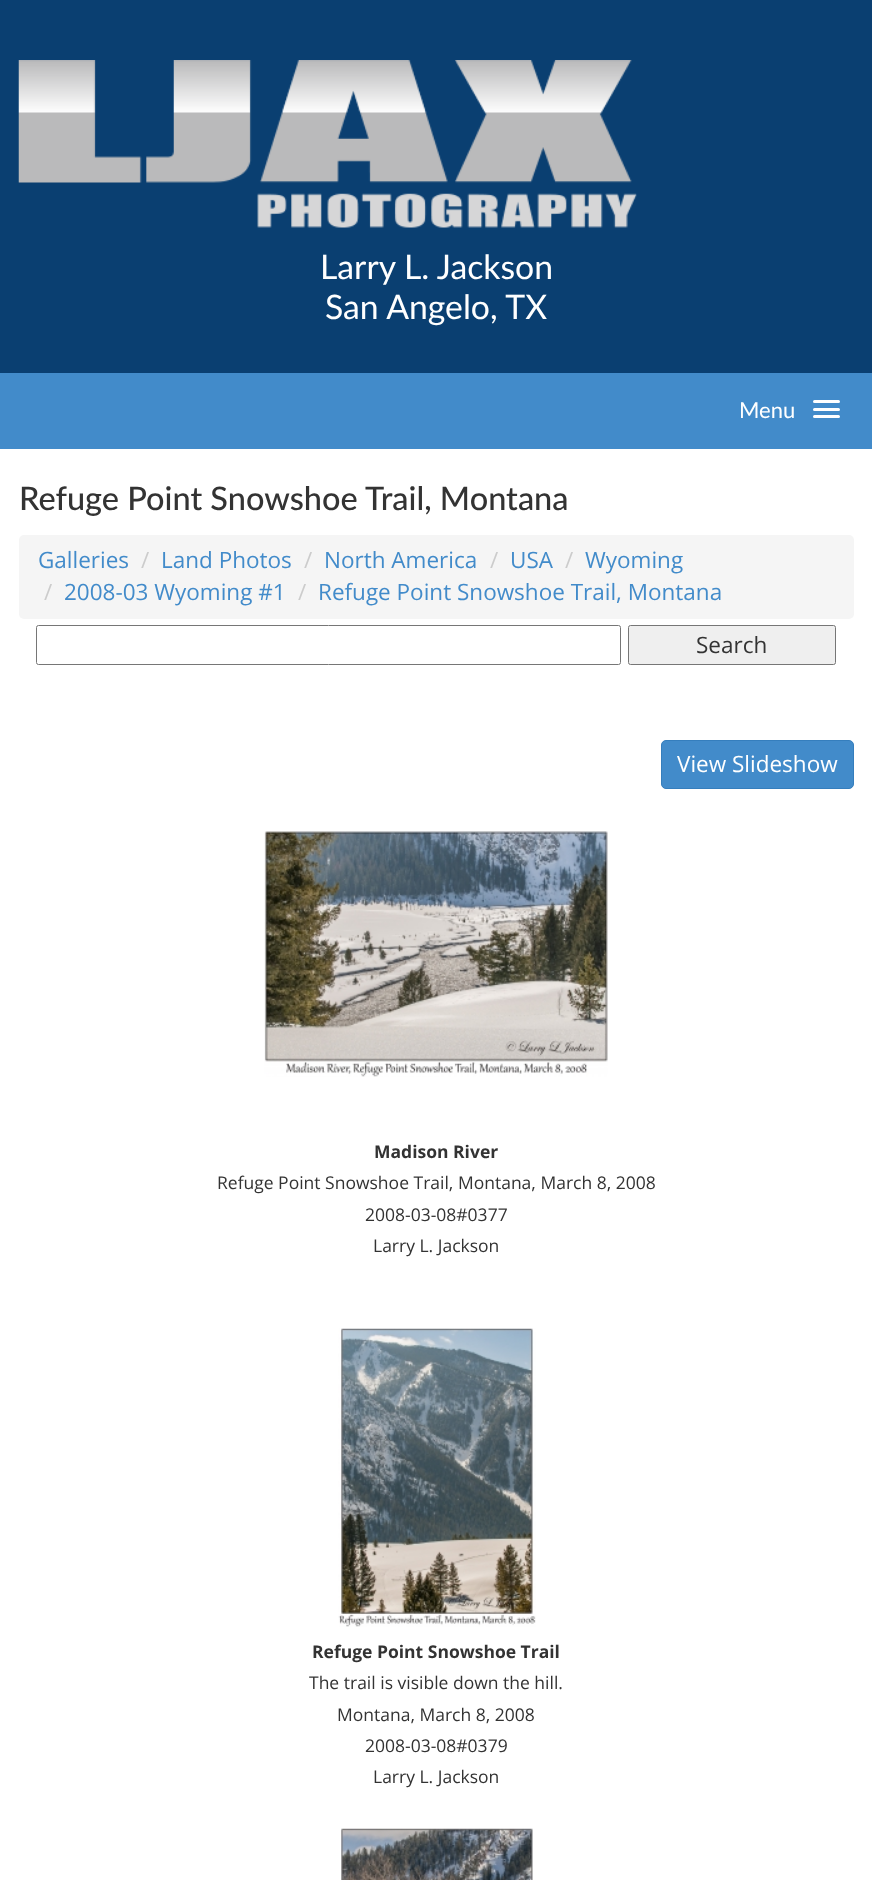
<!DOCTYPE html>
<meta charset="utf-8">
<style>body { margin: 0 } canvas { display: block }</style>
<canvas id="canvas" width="872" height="1880"></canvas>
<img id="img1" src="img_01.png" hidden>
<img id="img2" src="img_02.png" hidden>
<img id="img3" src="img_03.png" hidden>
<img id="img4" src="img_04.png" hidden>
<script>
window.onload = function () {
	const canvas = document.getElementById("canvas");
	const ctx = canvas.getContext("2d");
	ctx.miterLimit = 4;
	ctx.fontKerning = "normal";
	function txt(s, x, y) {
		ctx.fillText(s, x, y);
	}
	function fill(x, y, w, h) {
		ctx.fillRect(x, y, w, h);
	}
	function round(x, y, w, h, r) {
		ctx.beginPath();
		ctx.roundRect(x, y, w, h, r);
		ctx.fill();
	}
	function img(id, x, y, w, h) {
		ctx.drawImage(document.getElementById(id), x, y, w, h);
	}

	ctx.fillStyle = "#FFFFFF";
	fill(0, 0, 872, 1880);
	ctx.fillStyle = "#0A3F71";
	fill(0, 0, 872, 373);
	img("img1", 18, 60, 619, 168);
	ctx.fillStyle = "#428BCA";
	fill(0, 373, 872, 76);
	ctx.fillStyle = "#FFFFFF";
	round(813, 400, 27, 3, 1.5);
	round(813, 408, 27, 3, 1.5);
	round(813, 415, 27, 3, 1.5);
	ctx.fillStyle = "#F5F5F5";
	round(19, 535, 835, 84, 5);
	ctx.beginPath();
	ctx.roundRect(36.5, 625.5, 584, 39, 2);
	ctx.strokeStyle = "#767676";
	ctx.stroke();
	ctx.fillStyle = "#EFEFEF";
	ctx.beginPath();
	ctx.roundRect(628.5, 625.5, 207, 39, 2);
	ctx.fill();
	ctx.stroke();
	ctx.fillStyle = "#428BCA";
	ctx.beginPath();
	ctx.roundRect(661.5, 740.5, 192, 48, 4.5);
	ctx.fill();
	ctx.strokeStyle = "#357EBD";
	ctx.stroke();
	img("img2", 264, 831, 344, 246);
	img("img3", 338, 1328, 198, 299);
	img("img4", 341, 1828, 192, 52);
	ctx.font = "33.75px Lato";
	ctx.fillStyle = "#FFFFFF";
	txt("Larry L. Jackson", 320, 279);
	txt("San Angelo, TX", 325, 319);
	ctx.font = "22px Lato";
	txt("Menu", 739, 418);
	ctx.font = "500 32.5px Lato";
	ctx.fillStyle = "#333333";
	txt("Refuge Point Snowshoe Trail, Montana", 19, 510);
	ctx.font = "22.5px Open Sans";
	ctx.fillStyle = "#428BCA";
	txt("Galleries", 38, 568);
	ctx.fillStyle = "#CCCCCC";
	txt("/", 141, 568);
	ctx.fillStyle = "#428BCA";
	txt("Land Photos", 161, 568);
	ctx.fillStyle = "#CCCCCC";
	txt("/", 304, 568);
	ctx.fillStyle = "#428BCA";
	txt("North America", 324, 568);
	ctx.fillStyle = "#CCCCCC";
	txt("/", 490, 568);
	ctx.fillStyle = "#428BCA";
	txt("USA", 510, 568);
	ctx.fillStyle = "#CCCCCC";
	txt("/", 565, 568);
	ctx.fillStyle = "#428BCA";
	txt("Wyoming", 585, 568);
	ctx.fillStyle = "#CCCCCC";
	txt("/", 44, 600);
	ctx.fillStyle = "#428BCA";
	txt("2008-03 Wyoming #1", 64, 600);
	ctx.fillStyle = "#CCCCCC";
	txt("/", 298, 600);
	ctx.fillStyle = "#428BCA";
	txt("Refuge Point Snowshoe Trail, Montana", 318, 600);
	ctx.fillStyle = "#333333";
	txt("Search", 696, 653);
	ctx.fillStyle = "#FFFFFF";
	txt("View Slideshow", 677, 772);
	ctx.font = "bold 17.5px Open Sans";
	ctx.fillStyle = "#333333";
	txt("Madison River", 374, 1158);
	ctx.font = "17.5px Open Sans";
	txt("Refuge Point Snowshoe Trail, Montana, March 8, 2008", 217, 1189);
	txt("2008-03-08#0377", 365, 1221);
	txt("Larry L. Jackson", 373, 1252);
	ctx.font = "bold 17.5px Open Sans";
	txt("Refuge Point Snowshoe Trail", 312, 1658);
	ctx.font = "17.5px Open Sans";
	txt("The trail is visible down the hill.", 309, 1689);
	txt("Montana, March 8, 2008", 337, 1721);
	txt("2008-03-08#0379", 365, 1752);
	txt("Larry L. Jackson", 373, 1783);
};
</script>
